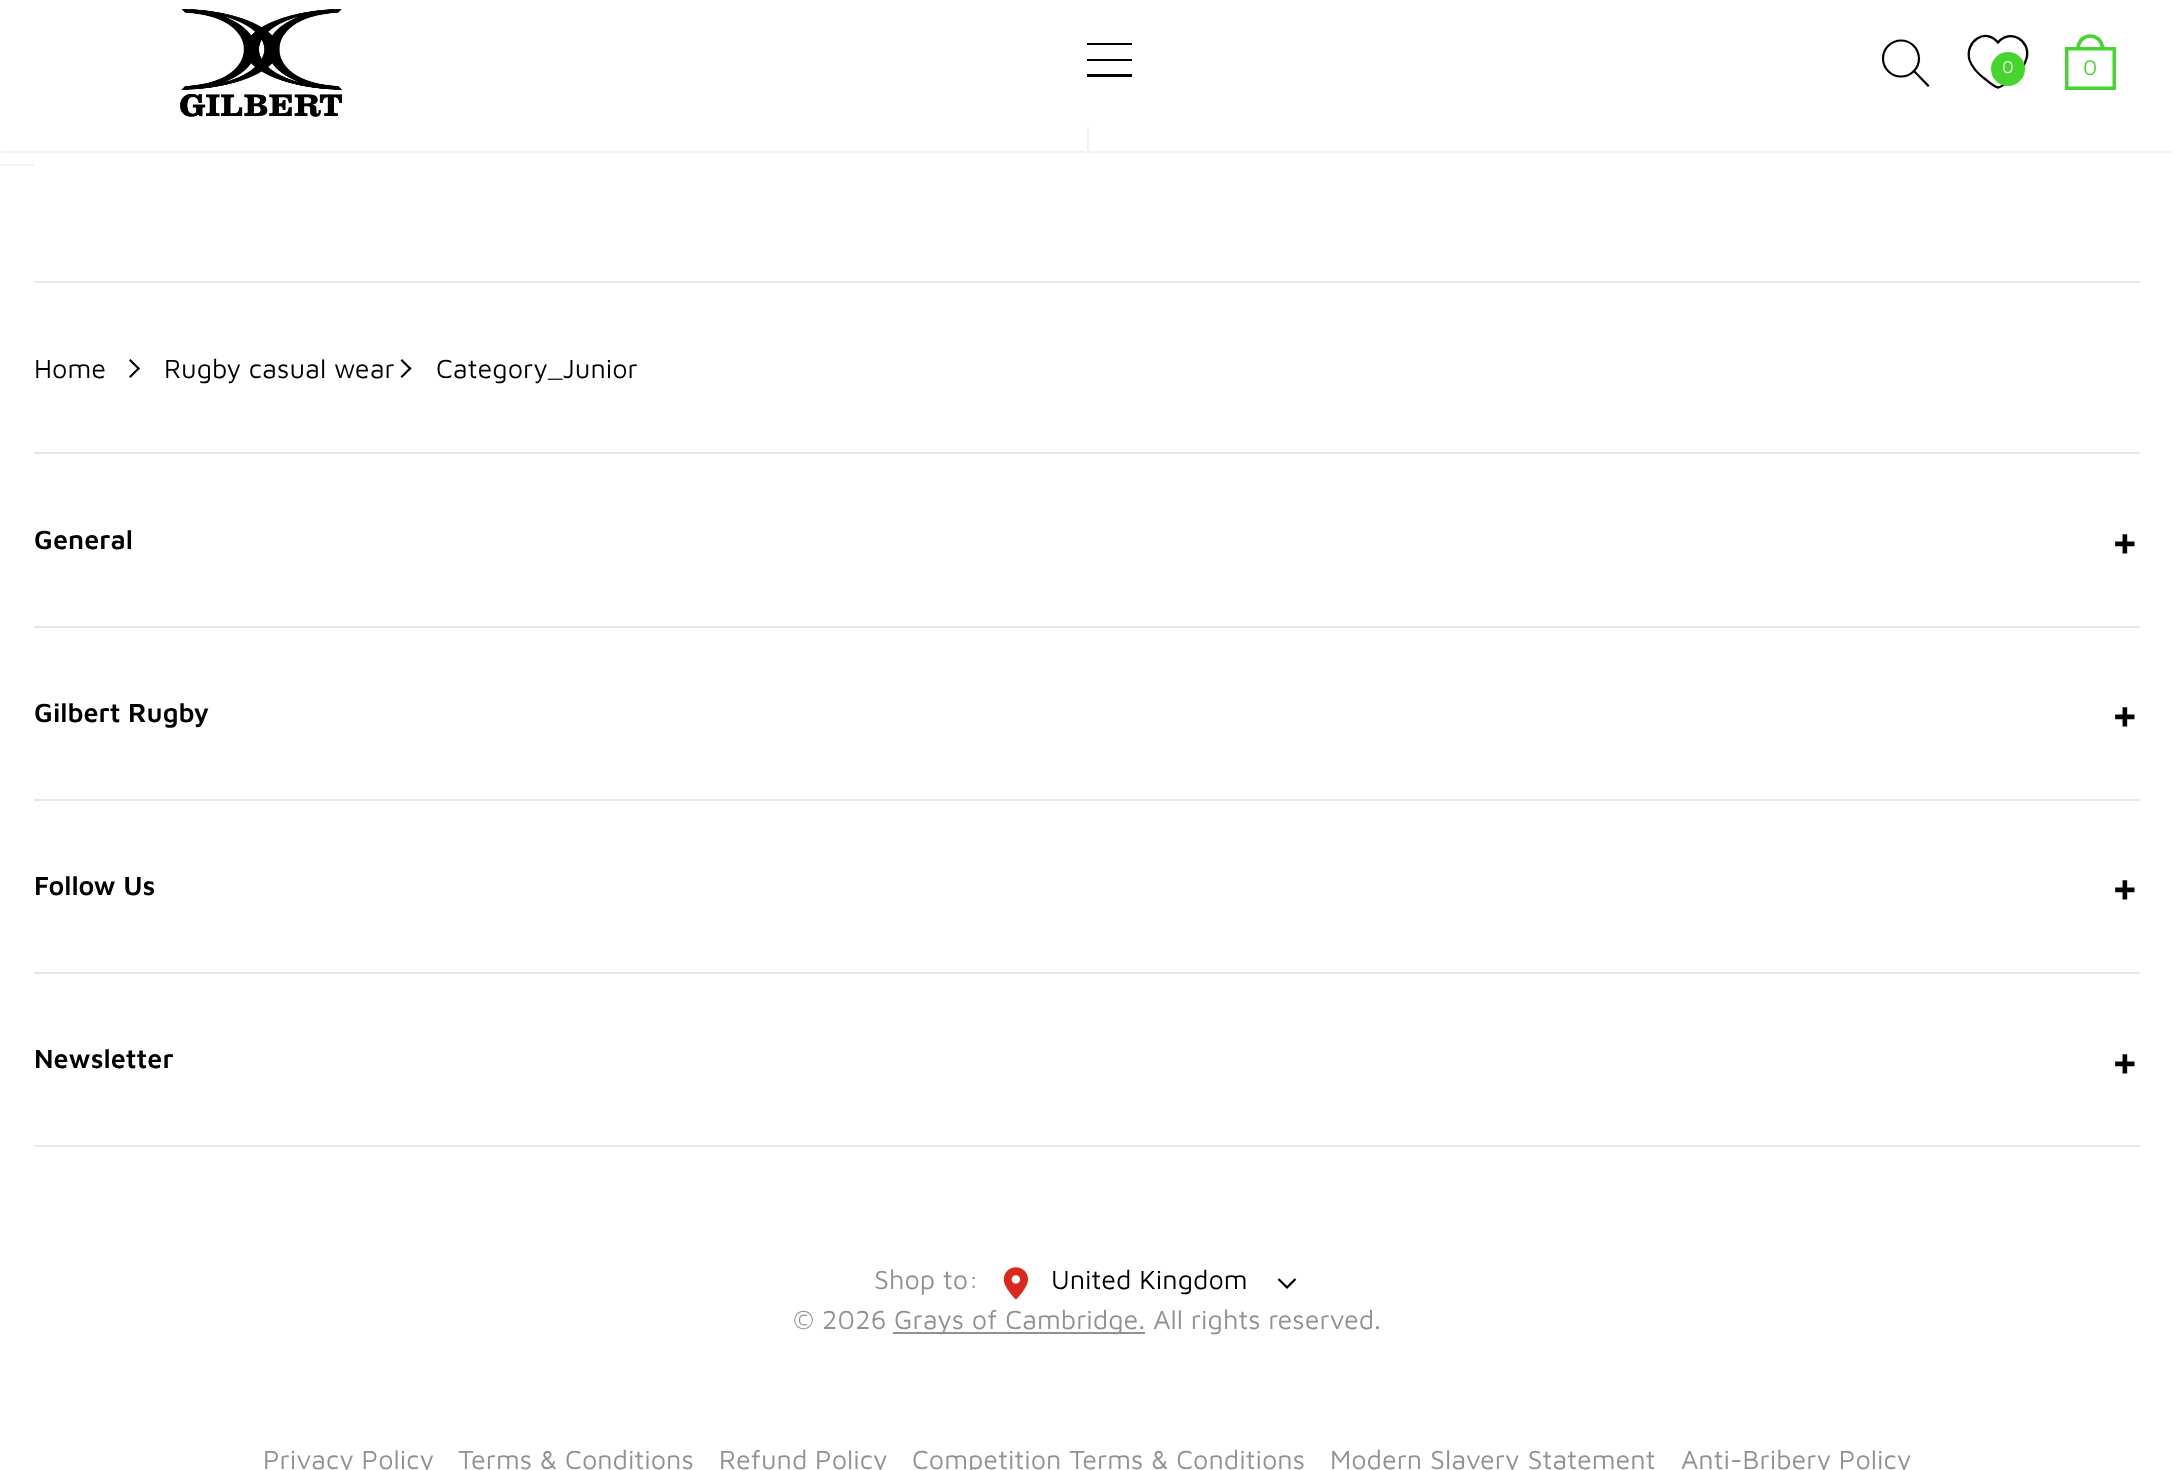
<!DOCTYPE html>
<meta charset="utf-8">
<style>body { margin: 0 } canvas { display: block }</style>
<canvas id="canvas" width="2172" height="1470"></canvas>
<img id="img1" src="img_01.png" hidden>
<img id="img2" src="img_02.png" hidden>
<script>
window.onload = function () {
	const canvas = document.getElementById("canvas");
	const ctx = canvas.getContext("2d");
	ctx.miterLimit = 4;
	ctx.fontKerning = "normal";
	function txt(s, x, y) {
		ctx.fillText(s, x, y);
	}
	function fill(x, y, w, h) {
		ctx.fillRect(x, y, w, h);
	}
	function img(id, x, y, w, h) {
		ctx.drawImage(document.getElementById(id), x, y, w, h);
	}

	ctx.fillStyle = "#FFFFFF";
	fill(0, 0, 2172, 1470);
	img("img1", 180, 9, 163, 108);
	ctx.fillStyle = "#000000";
	fill(1087, 43, 45, 2);
	fill(1087, 59, 45, 2);
	fill(1087, 74, 45, 3);
	ctx.beginPath();
	ctx.moveTo(1928, 85.5);
	ctx.lineTo(1914, 71);
	ctx.strokeStyle = "#000000";
	ctx.lineWidth = 2.2;
	ctx.lineCap = "square";
	ctx.stroke();
	ctx.beginPath();
	ctx.arc(1901, 58.5, 18, 0, Math.PI * 2);
	ctx.stroke();
	ctx.beginPath();
	ctx.moveTo(1998, 87.5);
	ctx.bezierCurveTo(1995, 87.5, 1987.5, 81, 1985, 79);
	ctx.bezierCurveTo(1979, 74.5, 1972, 67.5, 1969.5, 60);
	ctx.bezierCurveTo(1964.5, 41.5, 1985.5, 27, 1998, 42.5);
	ctx.bezierCurveTo(2009.5, 28, 2031.5, 40.5, 2026.5, 58.5);
	ctx.bezierCurveTo(2024.5, 67, 2017.5, 73.5, 2011, 79);
	ctx.bezierCurveTo(2010, 80, 2001, 87.5, 1998, 87.5);
	ctx.closePath();
	ctx.lineWidth = 2.3;
	ctx.lineCap = "butt";
	ctx.stroke();
	ctx.fillStyle = "#44D62C";
	ctx.beginPath();
	ctx.arc(2008, 69, 17, 0, Math.PI * 2);
	ctx.fill();
	ctx.beginPath();
	ctx.moveTo(2078, 49.5);
	ctx.bezierCurveTo(2078, 31.5, 2102.5, 31.5, 2102.5, 49.5);
	ctx.strokeStyle = "#44D62C";
	ctx.lineWidth = 3.7;
	ctx.stroke();
	ctx.lineWidth = 3.5;
	ctx.strokeRect(2066.75, 48.75, 47.5, 39.5);
	ctx.fillStyle = "#F3F3F3";
	fill(2, 151, 1083, 2);
	fill(1087, 151, 1085, 2);
	fill(1087, 126, 2, 27);
	fill(0, 164, 34, 2);
	ctx.fillStyle = "#E7E7E7";
	fill(34, 281, 2106, 2);
	ctx.fillStyle = "#000000";
	ctx.beginPath();
	ctx.moveTo(130.5, 359);
	ctx.lineTo(140, 368.5);
	ctx.lineTo(138.5, 370);
	ctx.lineTo(129, 360.5);
	ctx.closePath();
	ctx.fill();
	ctx.beginPath();
	ctx.moveTo(138.5, 367);
	ctx.lineTo(140, 368.5);
	ctx.lineTo(130.5, 378);
	ctx.lineTo(129, 376.5);
	ctx.closePath();
	ctx.fill();
	ctx.beginPath();
	ctx.moveTo(402, 359);
	ctx.lineTo(411.5, 368.5);
	ctx.lineTo(410, 370);
	ctx.lineTo(400.5, 360.5);
	ctx.closePath();
	ctx.fill();
	ctx.beginPath();
	ctx.moveTo(410, 367);
	ctx.lineTo(411.5, 368.5);
	ctx.lineTo(402, 378);
	ctx.lineTo(400.5, 376.5);
	ctx.closePath();
	ctx.fill();
	ctx.fillStyle = "#E7E7E7";
	fill(34, 452, 2106, 2);
	fill(34, 626, 2106, 2);
	fill(34, 799, 2106, 2);
	fill(34, 972, 2106, 2);
	fill(34, 1145, 2106, 2);
	img("img2", 1003, 1267, 25, 33);
	ctx.beginPath();
	ctx.moveTo(1278.5, 1279);
	ctx.lineTo(1287, 1287.5);
	ctx.lineTo(1295.5, 1279);
	ctx.strokeStyle = "#000000";
	ctx.lineWidth = 2.2;
	ctx.stroke();
	ctx.fillStyle = "#919191";
	fill(893, 1332, 252, 2);
	ctx.font = "18px Maven Pro";
	ctx.fillStyle = "#FFFFFF";
	txt("0", 2002, 73);
	ctx.font = "22px Maven Pro";
	ctx.fillStyle = "#44D62C";
	txt("0", 2083, 75);
	ctx.font = "27px Maven Pro";
	ctx.fillStyle = "#000000";
	txt("Home", 34, 378);
	txt("Rugby casual wear", 164, 378);
	txt("Category_Junior", 436, 378);
	ctx.font = "600 27px Maven Pro";
	txt("General", 34, 549);
	ctx.font = "600 54px Maven Pro";
	txt("+", 2110, 560);
	ctx.font = "600 27px Maven Pro";
	txt("Gilbert Rugby", 34, 722);
	ctx.font = "600 54px Maven Pro";
	txt("+", 2110, 733);
	ctx.font = "600 27px Maven Pro";
	txt("Follow Us", 34, 895);
	ctx.font = "600 54px Maven Pro";
	txt("+", 2110, 906);
	ctx.font = "600 27px Maven Pro";
	txt("Newsletter", 34, 1068);
	ctx.font = "600 54px Maven Pro";
	txt("+", 2110, 1080);
	ctx.font = "27px Maven Pro";
	ctx.fillStyle = "#919191";
	txt("Shop to:", 874, 1289);
	ctx.fillStyle = "#000000";
	txt("United Kingdom", 1051, 1289);
	ctx.fillStyle = "#919191";
	txt("© 2026", 793, 1329);
	txt("Grays of Cambridge. All rights reserved.", 894, 1329);
	txt("Privacy Policy", 263, 1469);
	txt("Terms & Conditions", 458, 1469);
	txt("Refund Policy", 719, 1469);
	txt("Competition Terms & Conditions", 912, 1469);
	txt("Modern Slavery Statement", 1330, 1469);
	txt("Anti-Bribery Policy", 1681, 1469);
};
</script>
